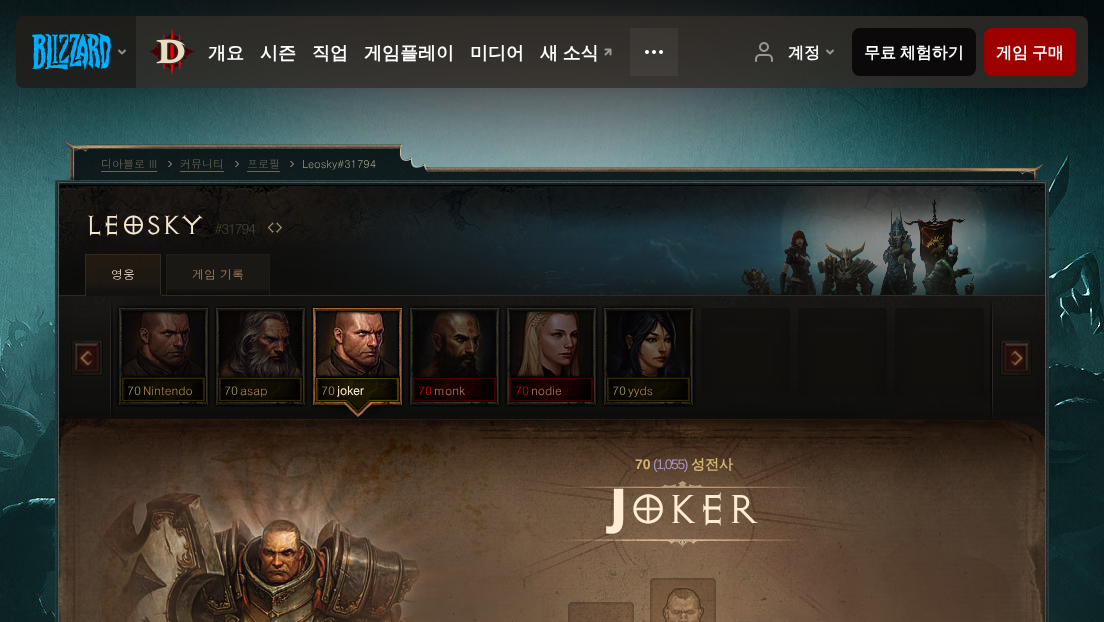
<!DOCTYPE html>
<meta charset="utf-8">
<style>body { margin: 0 } canvas { display: block }</style>
<canvas id="canvas" width="1104" height="622"></canvas>
<img id="img1" src="img_06.png" hidden>
<img id="img2" src="img_01.png" hidden>
<img id="img3" src="img_02.png" hidden>
<img id="img4" src="img_03.png" hidden>
<img id="img5" src="img_04.png" hidden>
<img id="img6" src="img_05.png" hidden>
<img id="img7" src="img_07.png" hidden>
<img id="img8" src="img_08.png" hidden>
<img id="img9" src="img_09.png" hidden>
<img id="img10" src="img_13.png" hidden>
<img id="img11" src="img_10.png" hidden>
<img id="img12" src="img_11.png" hidden>
<img id="img13" src="img_12.png" hidden>
<img id="img14" src="img_14.png" hidden>
<img id="img15" src="img_15.png" hidden>
<img id="img16" src="img_16.png" hidden>
<img id="img17" src="img_18.png" hidden>
<img id="img18" src="img_19.png" hidden>
<img id="img19" src="img_20.png" hidden>
<img id="img20" src="img_21.png" hidden>
<img id="img21" src="img_22.png" hidden>
<img id="img22" src="img_23.png" hidden>
<img id="img23" src="img_24.png" hidden>
<img id="img24" src="img_25.png" hidden>
<img id="img25" src="img_26.png" hidden>
<img id="img26" src="img_27.png" hidden>
<img id="img27" src="img_28.png" hidden>
<img id="img28" src="img_29.png" hidden>
<img id="img29" src="img_30.png" hidden>
<img id="img30" src="img_31.png" hidden>
<img id="img31" src="img_32.png" hidden>
<img id="img32" src="img_33.png" hidden>
<img id="img33" src="img_34.png" hidden>
<img id="img34" src="img_35.png" hidden>
<img id="img35" src="img_36.png" hidden>
<img id="img36" src="img_37.png" hidden>
<img id="img37" src="img_38.png" hidden>
<img id="img38" src="img_39.png" hidden>
<img id="img39" src="img_40.png" hidden>
<img id="img40" src="img_41.png" hidden>
<img id="img41" src="img_42.png" hidden>
<img id="img42" src="img_43.png" hidden>
<img id="img43" src="img_17.png" hidden>
<script>
window.onload = function () {
	const canvas = document.getElementById("canvas");
	const ctx = canvas.getContext("2d");
	ctx.miterLimit = 4;
	ctx.fontKerning = "normal";
	function txt(s, x, y) {
		ctx.fillText(s, x, y);
	}
	function fill(x, y, w, h) {
		ctx.fillRect(x, y, w, h);
	}
	function round(x, y, w, h, r) {
		ctx.beginPath();
		ctx.roundRect(x, y, w, h, r);
		ctx.fill();
	}
	function img(id, x, y, w, h) {
		ctx.drawImage(document.getElementById(id), x, y, w, h);
	}

	ctx.fillStyle = "#FFFFFF";
	fill(0, 0, 1104, 622);
	img("img1", 0, 0, 1104, 622);
	ctx.fillStyle = "rgba(51, 46, 41, 0.8)";
	round(16, 16, 1072, 72, 8);
	ctx.fillStyle = "rgba(0, 0, 0, 0.3)";
	ctx.beginPath();
	ctx.roundRect(16, 16, 120, 72, [8, 0, 0, 8]);
	ctx.fill();
	img("img2", 32, 33, 79, 37);
	ctx.beginPath();
	ctx.moveTo(119, 50.5);
	ctx.lineTo(122, 53.5);
	ctx.lineTo(125, 50.5);
	ctx.strokeStyle = "#8F8F8E";
	ctx.lineWidth = 2;
	ctx.lineCap = "round";
	ctx.lineJoin = "round";
	ctx.stroke();
	img("img3", 149, 28, 46, 48);
	img("img4", 604, 48, 8, 8);
	ctx.fillStyle = "rgba(255, 255, 255, 0.05)";
	fill(630, 28, 48, 48);
	img("img5", 645, 50, 18, 4);
	img("img6", 755, 42, 18, 20);
	ctx.beginPath();
	ctx.moveTo(827, 50.5);
	ctx.lineTo(830, 53.5);
	ctx.lineTo(833, 50.5);
	ctx.strokeStyle = "#969694";
	ctx.stroke();
	ctx.fillStyle = "#0B0909";
	round(852, 28, 124, 48, 8);
	ctx.fillStyle = "#9E0000";
	round(984, 28, 92, 48, 8);
	img("img7", 64, 140, 121, 40);
	ctx.fillStyle = "#6D624C";
	fill(101, 171, 56, 1);
	img("img8", 168, 161, 4, 6);
	img("img9", 184, 144, 214, 36);
	img("img10", 413, 167, 516, 13);
	img("img11", 398, 144, 32, 36);
	fill(180, 171, 44, 1);
	img("img12", 235, 161, 4, 6);
	fill(247, 171, 33, 1);
	img("img13", 290, 161, 4, 6);
	img("img14", 929, 163, 115, 17);
	img("img15", 0, 247, 59, 375);
	img("img16", 59, 186, 986, 109);
	img("img17", 59, 295, 986, 1);
	img("img18", 86, 255, 74, 40);
	ctx.fillStyle = "#302A21";
	fill(85, 254, 76, 1);
	fill(160, 254, 1, 42);
	ctx.fillStyle = "#12110F";
	fill(85, 295, 76, 1);
	ctx.fillStyle = "#302A21";
	fill(85, 254, 1, 42);
	ctx.fillStyle = "#1A1814";
	fill(167, 255, 102, 34);
	img("img19", 167, 289, 102, 6);
	ctx.fillStyle = "#1E1C17";
	fill(166, 254, 104, 1);
	fill(269, 254, 1, 41);
	fill(166, 254, 1, 41);
	img("img20", 59, 296, 986, 123);
	img("img21", 71, 340, 32, 36);
	img("img22", 75, 341, 26, 33);
	img("img23", 110, 301, 3, 118);
	img("img24", 116, 305, 94, 102);
	img("img25", 123, 311, 81, 65);
	img("img26", 214, 306, 93, 101);
	img("img27", 219, 311, 83, 66);
	img("img28", 311, 306, 93, 111);
	img("img29", 316, 311, 83, 66);
	img("img30", 408, 305, 94, 102);
	img("img31", 416, 311, 77, 66);
	img("img32", 504, 305, 95, 102);
	img("img33", 512, 311, 79, 66);
	img("img34", 601, 305, 95, 102);
	img("img35", 609, 311, 78, 66);
	img("img36", 701, 308, 89, 84);
	img("img37", 798, 308, 89, 87);
	img("img37", 895, 308, 89, 87);
	img("img38", 990, 301, 3, 118);
	img("img39", 1000, 340, 32, 36);
	img("img40", 1002, 341, 26, 33);
	img("img41", 59, 419, 986, 203);
	img("img42", 1045, 247, 59, 375);
	ctx.font = "bold 18px WenQuanYi Zen Hei";
	ctx.fillStyle = "#FFFFFF";
	txt("개요", 208, 59);
	txt("시즌", 260, 59);
	txt("직업", 312, 59);
	txt("게임플레이", 364, 59);
	txt("미디어", 470, 59);
	ctx.wordSpacing = "-1px";
	txt("새 소식", 540, 59);
	ctx.wordSpacing = "0px";
	ctx.font = "bold 16px WenQuanYi Zen Hei";
	txt("계정", 788, 58);
	ctx.wordSpacing = "-1px";
	txt("무료 체험하기", 864, 58);
	txt("게임 구매", 996, 58);
	ctx.wordSpacing = "0px";
	ctx.font = "11px Dotum";
	ctx.fillStyle = "#6D624C";
	txt("디아블로 III", 101, 168);
	txt("커뮤니티", 180, 168);
	txt("프로필", 247, 168);
	ctx.fillStyle = "#A59A7C";
	txt("Leosky#31794", 302, 168);
	ctx.letterSpacing = "-1.5px";
	ctx.font = "31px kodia";
	ctx.fillStyle = "#F3E6D0";
	txt("LEOSKY", 85, 234);
	ctx.font = "14px Dotum";
	ctx.fillStyle = "#434037";
	txt("#31794", 214, 234);
	ctx.font = "22px kodia";
	ctx.fillStyle = "#A59A7C";
	txt("<>", 266, 234);
	img("img43", 55, 97, 1049, 150);
	ctx.letterSpacing = "0px";
	ctx.font = "12px Dotum";
	ctx.fillStyle = "#F3E6D0";
	txt("영웅", 111, 279);
	ctx.fillStyle = "#AD835A";
	txt("게임 기록", 192, 279);
	ctx.fillStyle = "#A59A7C";
	txt("70", 127, 395);
	ctx.fillStyle = "#AD835A";
	txt("Nintendo", 143, 395);
	ctx.fillStyle = "#A59A7C";
	txt("70", 224, 395);
	ctx.fillStyle = "#AD835A";
	txt("asap", 240, 395);
	ctx.fillStyle = "#A59A7C";
	txt("70", 321, 395);
	ctx.font = "bold 12px Dotum";
	ctx.fillStyle = "#F3E6D0";
	txt("joker", 337, 395);
	ctx.font = "12px Dotum";
	ctx.fillStyle = "#E60101";
	txt("70", 418, 395);
	ctx.fillStyle = "#AD835A";
	txt("monk", 434, 395);
	ctx.fillStyle = "#E60101";
	txt("70", 515, 395);
	ctx.fillStyle = "#AD835A";
	txt("nodie", 531, 395);
	ctx.fillStyle = "#A59A7C";
	txt("70", 612, 395);
	ctx.fillStyle = "#AD835A";
	txt("yyds", 628, 395);
	ctx.font = "bold 14px Liberation Sans";
	ctx.fillStyle = "#D4B473";
	txt("70", 635, 469);
	ctx.letterSpacing = "-1.5px";
	ctx.font = "14px Liberation Sans";
	ctx.fillStyle = "#A791C2";
	txt("(1,055)", 653, 469);
	ctx.letterSpacing = "0px";
	ctx.font = "bold 14px WenQuanYi Zen Hei";
	ctx.fillStyle = "#D4B473";
	txt("성전사", 691, 469);
	ctx.letterSpacing = "-1.5px";
	ctx.font = "900 48px Noto Sans";
	ctx.fillStyle = "#FFEAD4";
	txt("J", 610, 523);
	ctx.font = "48px kodia";
	txt("OKER", 628, 523);
};
</script>
